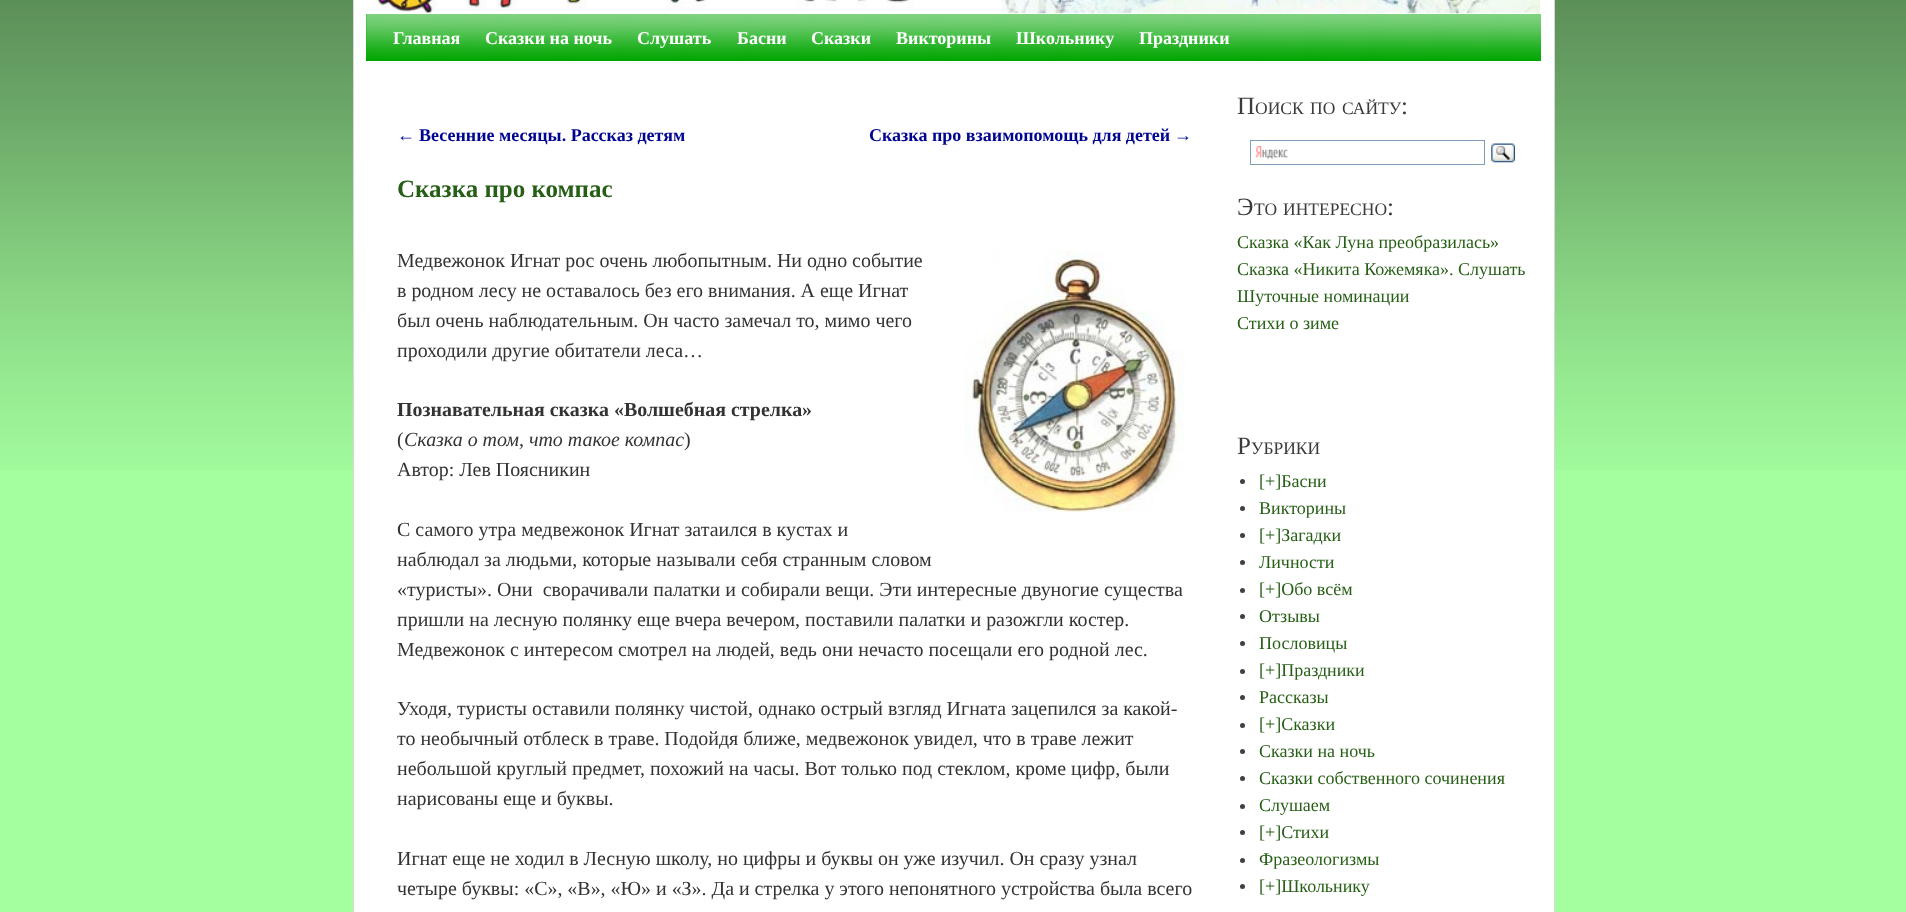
<!DOCTYPE html>
<meta charset="utf-8">
<style>body { margin: 0 } canvas { display: block }</style>
<canvas id="canvas" width="1906" height="912"></canvas>
<img id="img1" src="img_01.png" hidden>
<img id="img2" src="img_02.png" hidden>
<img id="img3" src="img_03.png" hidden>
<img id="img4" src="img_04.png" hidden>
<img id="img5" src="img_05.png" hidden>
<img id="img6" src="img_06.png" hidden>
<img id="img7" src="img_07.png" hidden>
<script>
window.onload = function () {
	const canvas = document.getElementById("canvas");
	const ctx = canvas.getContext("2d");
	ctx.miterLimit = 4;
	ctx.fontKerning = "normal";
	function txt(s, x, y) {
		ctx.fillText(s, x, y);
	}
	function fill(x, y, w, h) {
		ctx.fillRect(x, y, w, h);
	}
	function img(id, x, y, w, h) {
		ctx.drawImage(document.getElementById(id), x, y, w, h);
	}

	ctx.fillStyle = "#A4FF9E";
	fill(0, 0, 1906, 912);
	img("img1", 0, 0, 1906, 470);
	ctx.fillStyle = "#FFFFFF";
	ctx.beginPath();
	ctx.rect(353.5, -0.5, 1201, 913);
	ctx.fill();
	ctx.strokeStyle = "#D8D8D8";
	ctx.stroke();
	img("img2", 376, 0, 538, 13);
	img("img3", 1001, 0, 539, 14);
	ctx.fillStyle = "#00A600";
	fill(366, 14, 1175, 47);
	img("img4", 366, 14, 1175, 45);
	img("img5", 964, 251, 220, 262);
	img("img6", 1255, 146, 33, 14);
	ctx.strokeStyle = "#7F9DB9";
	ctx.strokeRect(1250.5, 140.5, 234, 24);
	img("img7", 1491, 143, 24, 20);
	ctx.fillStyle = "#404040";
	ctx.beginPath();
	ctx.arc(1242.5, 481.5, 2.5, 0, Math.PI * 2);
	ctx.fill();
	ctx.beginPath();
	ctx.arc(1242.5, 508.5, 2.5, 0, Math.PI * 2);
	ctx.fill();
	ctx.beginPath();
	ctx.arc(1242.5, 535.5, 2.5, 0, Math.PI * 2);
	ctx.fill();
	ctx.beginPath();
	ctx.arc(1242.5, 562.5, 2.5, 0, Math.PI * 2);
	ctx.fill();
	ctx.beginPath();
	ctx.arc(1242.5, 590.5, 2.5, 0, Math.PI * 2);
	ctx.fill();
	ctx.beginPath();
	ctx.arc(1242.5, 616.5, 2.5, 0, Math.PI * 2);
	ctx.fill();
	ctx.beginPath();
	ctx.arc(1242.5, 643.5, 2.5, 0, Math.PI * 2);
	ctx.fill();
	ctx.beginPath();
	ctx.arc(1242.5, 671.5, 2.5, 0, Math.PI * 2);
	ctx.fill();
	ctx.beginPath();
	ctx.arc(1242.5, 697.5, 2.5, 0, Math.PI * 2);
	ctx.fill();
	ctx.beginPath();
	ctx.arc(1242.5, 725.5, 2.5, 0, Math.PI * 2);
	ctx.fill();
	ctx.beginPath();
	ctx.arc(1242.5, 751.5, 2.5, 0, Math.PI * 2);
	ctx.fill();
	ctx.beginPath();
	ctx.arc(1242.5, 778.5, 2.5, 0, Math.PI * 2);
	ctx.fill();
	ctx.beginPath();
	ctx.arc(1242.5, 806.5, 2.5, 0, Math.PI * 2);
	ctx.fill();
	ctx.beginPath();
	ctx.arc(1242.5, 832.5, 2.5, 0, Math.PI * 2);
	ctx.fill();
	ctx.beginPath();
	ctx.arc(1242.5, 860.5, 2.5, 0, Math.PI * 2);
	ctx.fill();
	ctx.beginPath();
	ctx.arc(1242.5, 886.5, 2.5, 0, Math.PI * 2);
	ctx.fill();
	ctx.font = "bold 18px Liberation Serif";
	ctx.fillStyle = "#FFFFFF";
	txt("Главная", 393, 44);
	txt("Сказки на ночь", 485, 44);
	txt("Слушать", 637, 44);
	txt("Басни", 737, 44);
	txt("Сказки", 811, 44);
	txt("Викторины", 896, 44);
	txt("Школьнику", 1016, 44);
	txt("Праздники", 1139, 44);
	ctx.font = "18px Liberation Serif";
	ctx.fillStyle = "#00058F";
	txt("←", 397, 141);
	ctx.font = "bold 18px Liberation Serif";
	txt("Весенние месяцы. Рассказ детям", 419, 141);
	txt("Сказка про взаимопомощь для детей", 869, 141);
	ctx.font = "18px Liberation Serif";
	txt("→", 1174, 141);
	ctx.font = "bold 25px Liberation Serif";
	ctx.fillStyle = "#265E15";
	txt("Сказка про компас", 397, 197);
	ctx.font = "19.95px Liberation Serif";
	ctx.fillStyle = "#333333";
	txt("Медвежонок Игнат рос очень любопытным. Ни одно событие", 397, 267);
	txt("в родном лесу не оставалось без его внимания. А еще Игнат", 397, 297);
	txt("был очень наблюдательным. Он часто замечал то, мимо чего", 397, 327);
	txt("проходили другие обитатели леса…", 397, 357);
	ctx.font = "bold 19.95px Liberation Serif";
	txt("Познавательная сказка «Волшебная стрелка»", 397, 416);
	ctx.font = "19.95px Liberation Serif";
	txt("(", 397, 446);
	ctx.font = "italic 19.95px Liberation Serif";
	txt("Сказка о том, что такое компас", 404, 446);
	ctx.font = "19.95px Liberation Serif";
	txt(")", 684, 446);
	txt("Автор: Лев Поясникин", 397, 476);
	txt("С самого утра медвежонок Игнат затаился в кустах и", 397, 536);
	txt("наблюдал за людьми, которые называли себя странным словом", 397, 566);
	txt("«туристы». Они  сворачивали палатки и собирали вещи. Эти интересные двуногие существа", 397, 596);
	txt("пришли на лесную полянку еще вчера вечером, поставили палатки и разожгли костер.", 397, 626);
	txt("Медвежонок с интересом смотрел на людей, ведь они нечасто посещали его родной лес.", 397, 656);
	txt("Уходя, туристы оставили полянку чистой, однако острый взгляд Игната зацепился за какой-", 397, 715);
	txt("то необычный отблеск в траве. Подойдя ближе, медвежонок увидел, что в траве лежит", 397, 745);
	txt("небольшой круглый предмет, похожий на часы. Вот только под стеклом, кроме цифр, были", 397, 775);
	txt("нарисованы еще и буквы.", 397, 805);
	txt("Игнат еще не ходил в Лесную школу, но цифры и буквы он уже изучил. Он сразу узнал", 397, 865);
	txt("четыре буквы: «С», «В», «Ю» и «З». Да и стрелка у этого непонятного устройства была всего", 397, 895);
	ctx.font = "25px Liberation Serif";
	ctx.fillStyle = "#3B3B3B";
	txt("П", 1237, 114);
	ctx.font = "17.5px Liberation Serif";
	txt("ОИСК", 1255, 114);
	txt("ПО", 1310, 114);
	txt("САЙТУ", 1342, 114);
	ctx.font = "25px Liberation Serif";
	txt(":", 1401, 114);
	txt("Э", 1237, 215);
	ctx.font = "17.5px Liberation Serif";
	txt("ТО", 1254, 215);
	txt("ИНТЕРЕСНО", 1283, 215);
	ctx.font = "25px Liberation Serif";
	txt(":", 1387, 215);
	ctx.font = "18px Liberation Serif";
	ctx.fillStyle = "#265E15";
	txt("Сказка «Как Луна преобразилась»", 1237, 248);
	txt("Сказка «Никита Кожемяка». Слушать", 1237, 275);
	txt("Шуточные номинации", 1237, 302);
	txt("Стихи о зиме", 1237, 329);
	ctx.font = "25px Liberation Serif";
	ctx.fillStyle = "#3B3B3B";
	txt("Р", 1237, 454);
	ctx.font = "17.5px Liberation Serif";
	txt("УБРИКИ", 1251, 454);
	ctx.font = "18px Liberation Serif";
	ctx.fillStyle = "#265E15";
	txt("[+]Басни", 1259, 487);
	txt("Викторины", 1259, 514);
	txt("[+]Загадки", 1259, 541);
	txt("Личности", 1259, 568);
	txt("[+]Обо всём", 1259, 595);
	txt("Отзывы", 1259, 622);
	txt("Пословицы", 1259, 649);
	txt("[+]Праздники", 1259, 676);
	txt("Рассказы", 1259, 703);
	txt("[+]Сказки", 1259, 730);
	txt("Сказки на ночь", 1259, 757);
	txt("Сказки собственного сочинения", 1259, 784);
	txt("Слушаем", 1259, 811);
	txt("[+]Стихи", 1259, 838);
	txt("Фразеологизмы", 1259, 865);
	txt("[+]Школьнику", 1259, 892);
};
</script>
